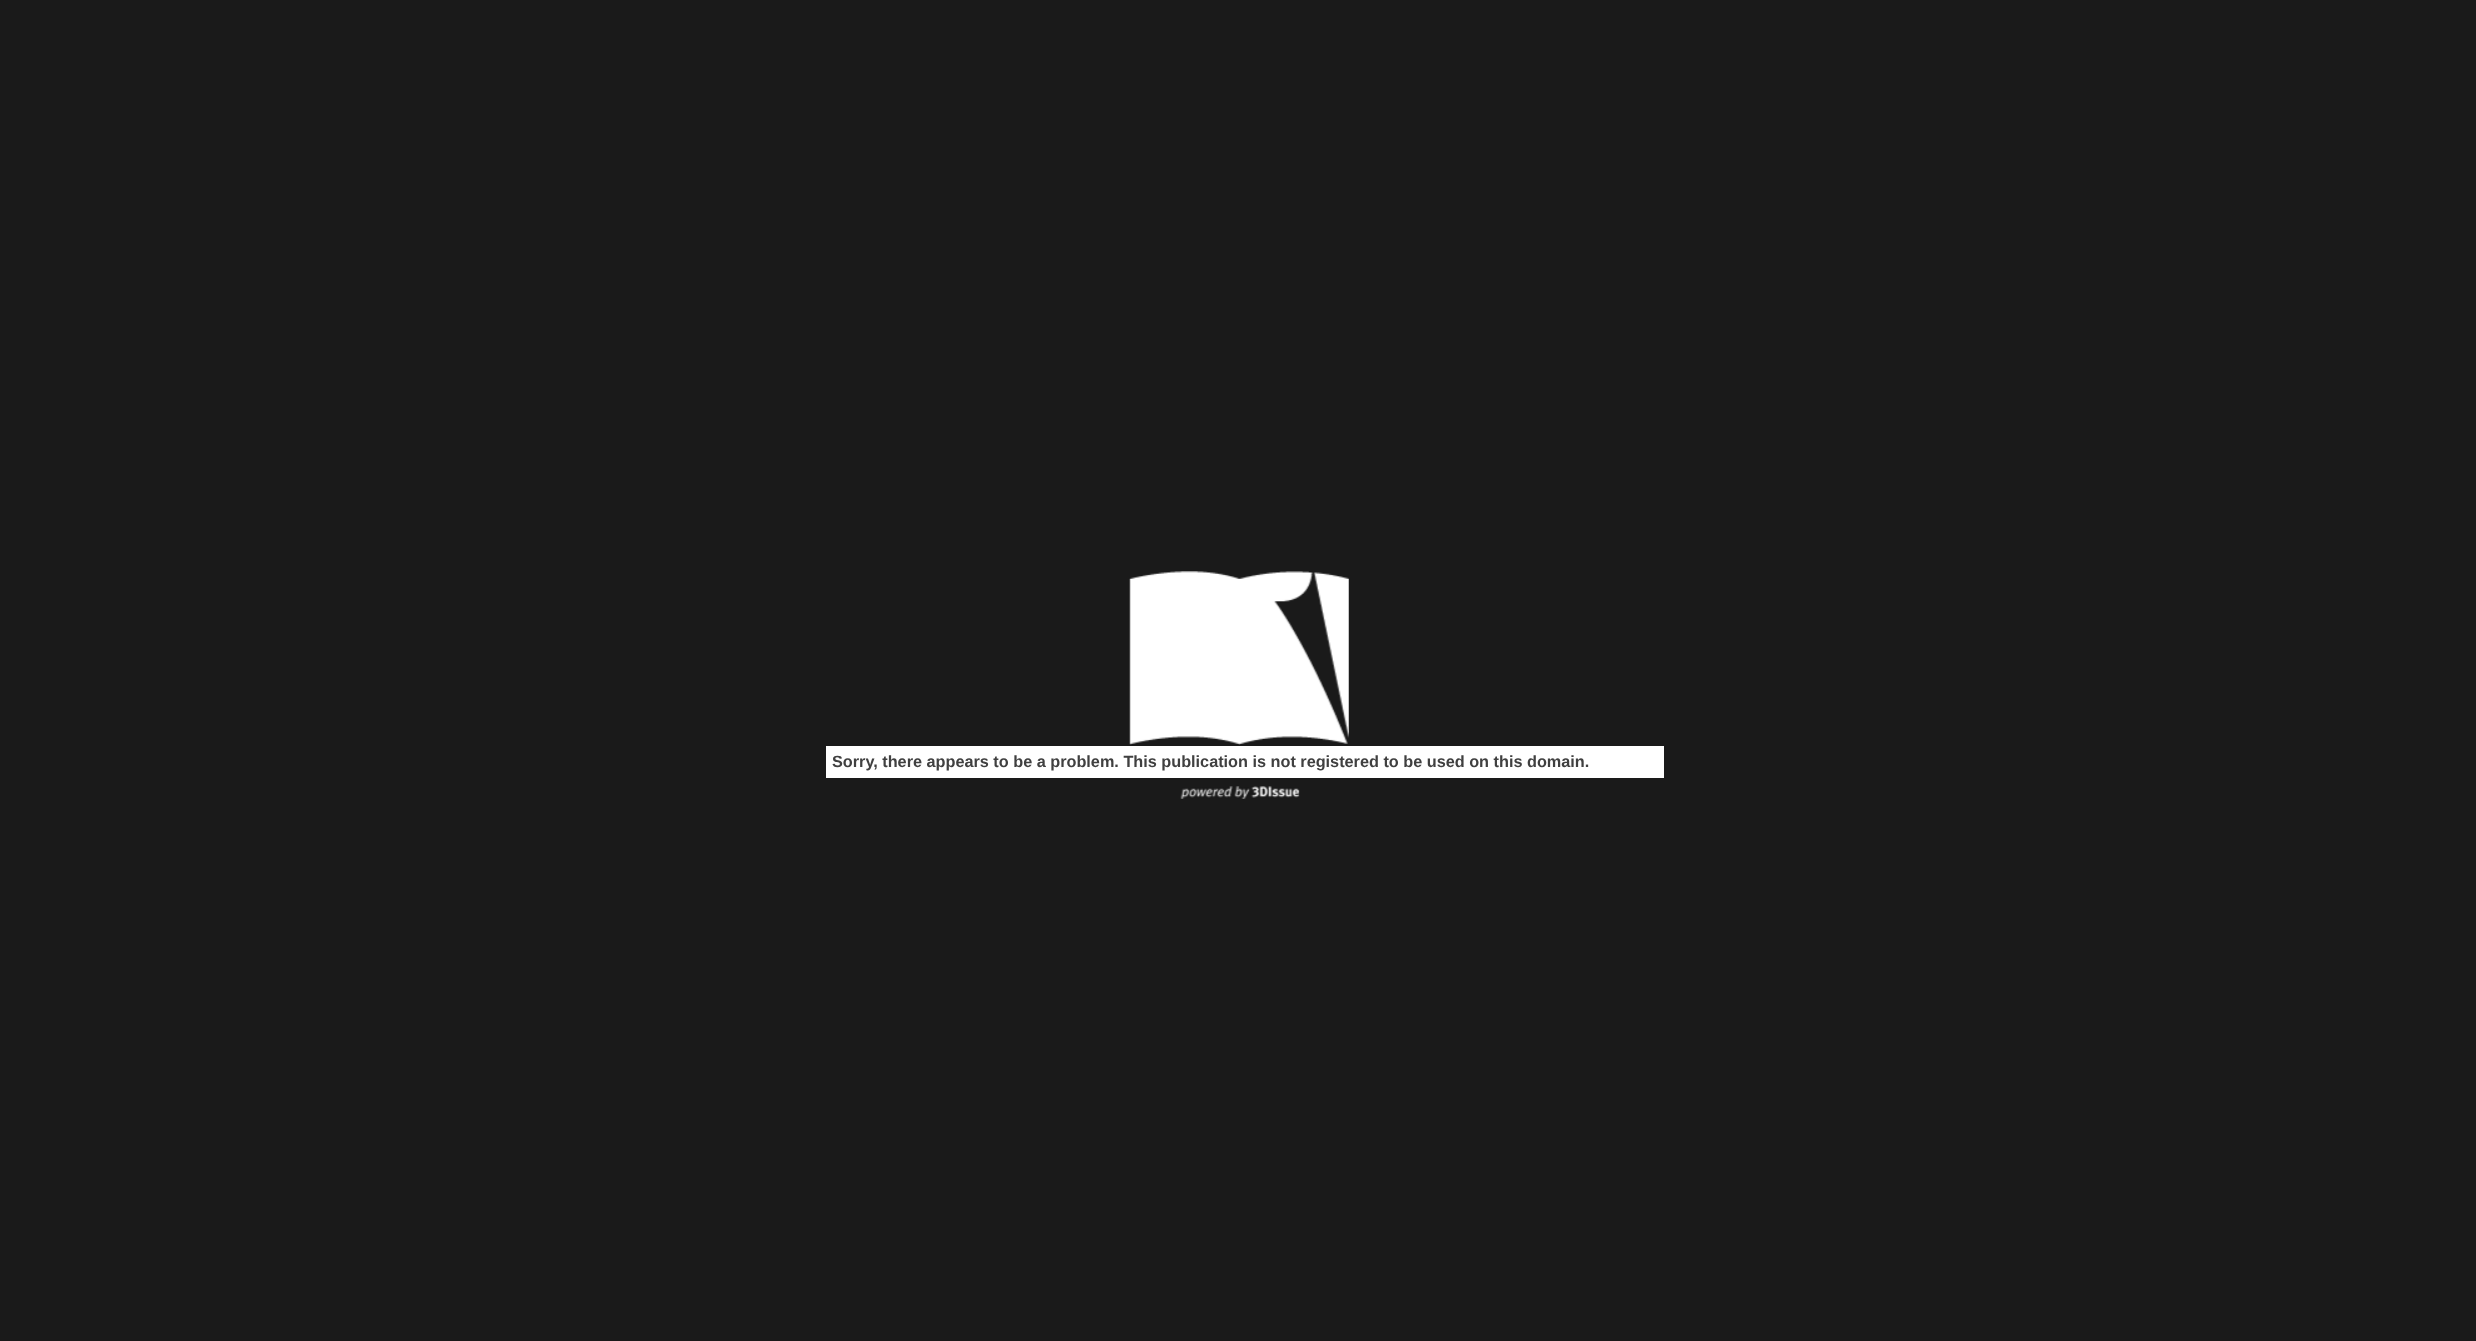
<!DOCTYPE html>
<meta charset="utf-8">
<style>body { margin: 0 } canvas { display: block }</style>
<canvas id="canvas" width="2476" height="1341"></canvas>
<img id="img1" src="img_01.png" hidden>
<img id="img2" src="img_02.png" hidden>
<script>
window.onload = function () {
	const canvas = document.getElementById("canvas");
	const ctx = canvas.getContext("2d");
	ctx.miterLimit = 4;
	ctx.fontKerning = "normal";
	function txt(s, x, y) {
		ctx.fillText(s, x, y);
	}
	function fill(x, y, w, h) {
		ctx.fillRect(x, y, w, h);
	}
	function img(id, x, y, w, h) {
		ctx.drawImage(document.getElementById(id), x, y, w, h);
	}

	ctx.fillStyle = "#1A1A1A";
	fill(0, 0, 2476, 1341);
	img("img1", 1129, 571, 220, 174);
	ctx.fillStyle = "#FFFFFF";
	fill(826, 746, 838, 32);
	img("img2", 1180, 786, 120, 13);
	ctx.font = "bold 16.25px Liberation Sans";
	ctx.fillStyle = "#404040";
	txt("Sorry, there appears to be a problem. This publication is not registered to be used on this domain.", 832, 767);
};
</script>
